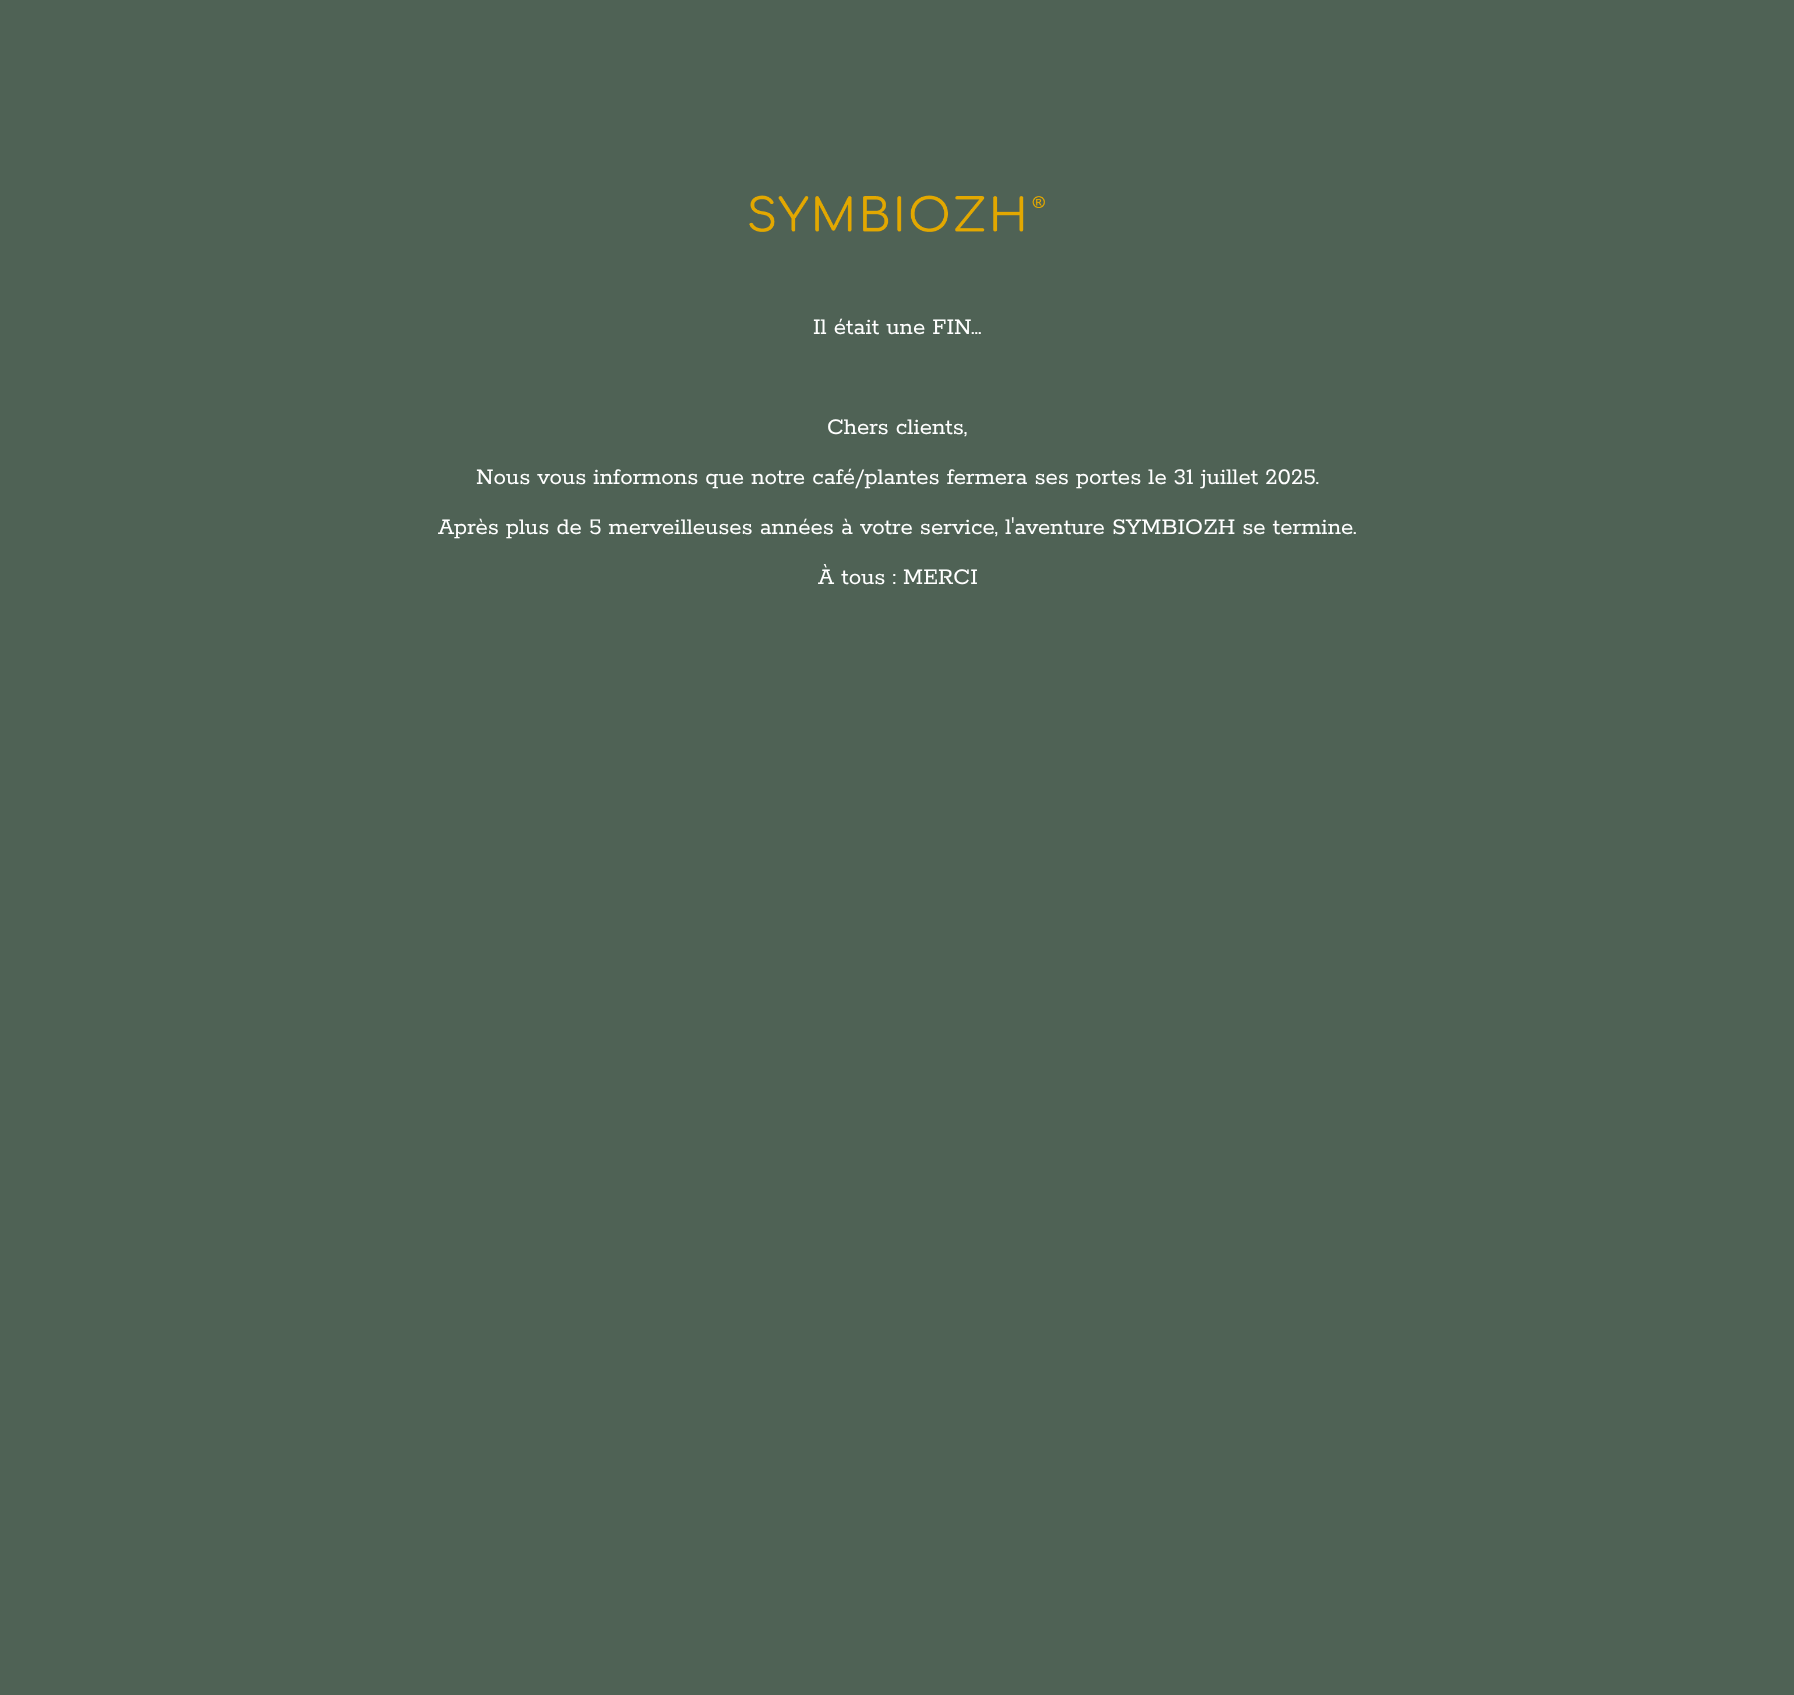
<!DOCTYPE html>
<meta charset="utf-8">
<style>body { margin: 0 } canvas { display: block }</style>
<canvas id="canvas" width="1794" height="1695"></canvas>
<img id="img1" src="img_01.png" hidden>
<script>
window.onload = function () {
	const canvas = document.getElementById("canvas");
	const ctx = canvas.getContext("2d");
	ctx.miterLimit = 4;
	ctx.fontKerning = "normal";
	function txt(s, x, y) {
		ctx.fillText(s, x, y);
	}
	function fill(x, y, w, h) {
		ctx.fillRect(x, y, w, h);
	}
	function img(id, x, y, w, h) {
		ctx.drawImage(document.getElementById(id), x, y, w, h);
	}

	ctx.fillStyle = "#4F6255";
	fill(0, 0, 1794, 1695);
	img("img1", 749, 195, 296, 37);
	ctx.font = "600 25px Rokkitt";
	ctx.fillStyle = "#FFFFFF";
	txt("Il était une FIN...", 813, 334);
	txt("Chers clients,", 827, 434);
	txt("Nous vous informons que notre café/plantes fermera ses portes le 31 juillet 2025.", 476, 484);
	txt("Après plus de 5 merveilleuses années à votre service, l'aventure SYMBIOZH se termine.", 438, 534);
	txt("À tous : MERCI", 818, 584);
};
</script>
